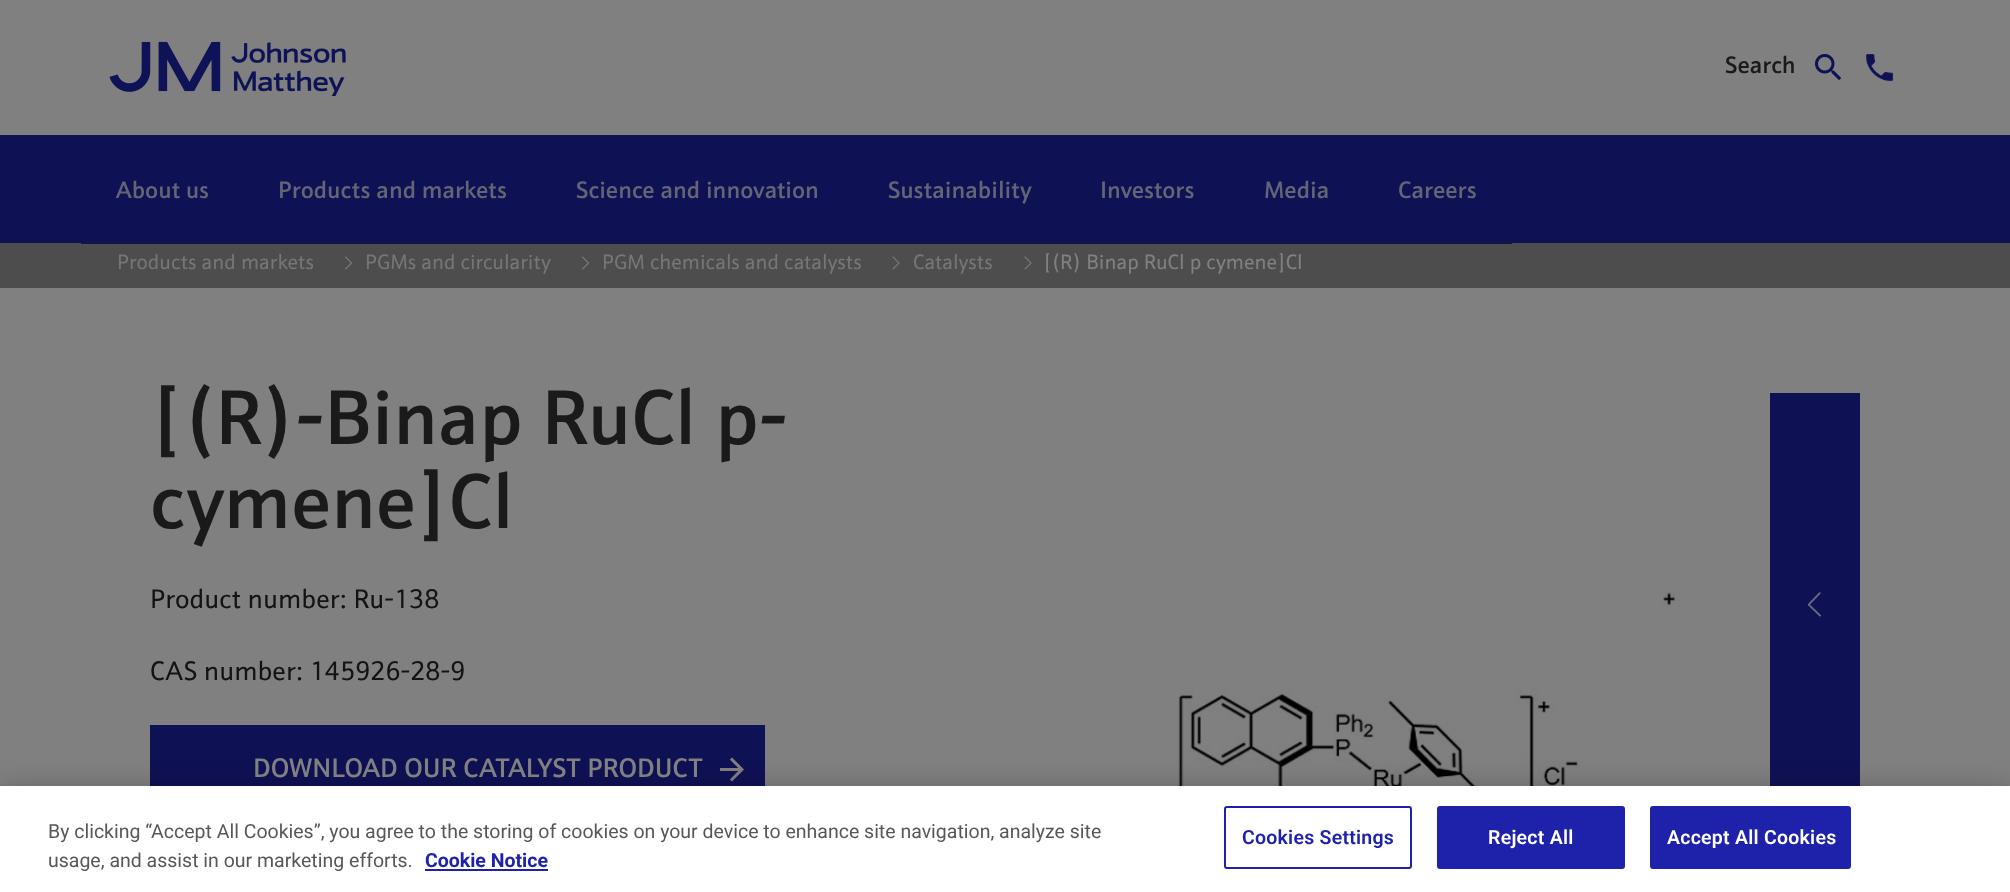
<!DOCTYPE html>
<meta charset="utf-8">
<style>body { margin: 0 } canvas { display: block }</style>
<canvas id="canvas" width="2010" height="892"></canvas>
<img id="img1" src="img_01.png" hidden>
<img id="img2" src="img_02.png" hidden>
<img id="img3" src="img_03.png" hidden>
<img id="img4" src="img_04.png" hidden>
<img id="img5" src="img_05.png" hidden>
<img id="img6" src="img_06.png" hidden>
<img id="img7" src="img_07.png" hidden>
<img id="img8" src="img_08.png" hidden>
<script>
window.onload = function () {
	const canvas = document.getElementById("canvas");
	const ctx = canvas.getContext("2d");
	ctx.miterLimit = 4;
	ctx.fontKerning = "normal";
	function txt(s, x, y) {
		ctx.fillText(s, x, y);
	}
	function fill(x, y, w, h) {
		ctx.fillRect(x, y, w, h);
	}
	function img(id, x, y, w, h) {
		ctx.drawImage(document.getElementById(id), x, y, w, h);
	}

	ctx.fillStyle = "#808080";
	fill(0, 0, 2010, 892);
	ctx.fillStyle = "#4D4D4D";
	fill(0, 243, 2010, 45);
	img("img1", 109, 41, 237, 55);
	img("img2", 1815, 54, 27, 27);
	img("img3", 1866, 54, 28, 28);
	ctx.fillStyle = "#0F1155";
	fill(0, 135, 2010, 108);
	ctx.fillStyle = "#151638";
	fill(81, 243, 1431, 1);
	img("img4", 345, 256, 7, 14);
	img("img4", 582, 256, 7, 14);
	img("img5", 892, 256, 8, 14);
	img("img5", 1024, 256, 8, 14);
	ctx.fillStyle = "#0F1155";
	fill(150, 725, 615, 61);
	img("img6", 720, 757, 24, 25);
	img("img7", 1178, 592, 498, 194);
	fill(1770, 393, 90, 393);
	img("img8", 1807, 592, 14, 25);
	ctx.fillStyle = "rgba(0, 0, 0, 0.2)";
	ctx.filter = "blur(13.5px)";
	ctx.beginPath();
	ctx.rect(0, 786, 2010, 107);
	ctx.fill();
	ctx.filter = "none";
	ctx.fillStyle = "#FFFFFF";
	fill(0, 786, 2010, 106);
	ctx.fillStyle = "#1E22AA";
	fill(425, 869, 123, 2);
	ctx.beginPath();
	ctx.roundRect(1225, 807, 186, 61, 2);
	ctx.strokeStyle = "#1E22AA";
	ctx.lineWidth = 2;
	ctx.stroke();
	ctx.beginPath();
	ctx.roundRect(1438, 807, 186, 61, 2);
	ctx.fill();
	ctx.stroke();
	ctx.beginPath();
	ctx.roundRect(1651, 807, 199, 61, 2);
	ctx.fill();
	ctx.stroke();
	ctx.font = "500 24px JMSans";
	ctx.fillStyle = "#1A1A1A";
	txt("Search", 1725, 73);
	ctx.fillStyle = "#646475";
	txt("About us", 116, 198);
	txt("Products and markets", 278, 198);
	txt("Science and innovation", 576, 198);
	txt("Sustainability", 888, 198);
	txt("Investors", 1100, 198);
	txt("Media", 1264, 198);
	txt("Careers", 1398, 198);
	ctx.font = "21px JMSans";
	ctx.fillStyle = "#767676";
	txt("Products and markets", 117, 269);
	txt("PGMs and circularity", 365, 269);
	txt("PGM chemicals and catalysts", 602, 269);
	txt("Catalysts", 913, 269);
	ctx.fillStyle = "#808080";
	txt("[(R) Binap RuCl p cymene]Cl", 1043, 269);
	ctx.font = "500 78px JMSans";
	ctx.fillStyle = "#1A1A1A";
	txt("[(R)-Binap RuCl p-", 150, 444);
	txt("cymene]Cl", 150, 528);
	ctx.font = "27px JMSans";
	ctx.fillStyle = "#111315";
	txt("Product number: Ru-138", 150, 608);
	txt("CAS number: 145926-28-9", 150, 680);
	ctx.font = "500 27px JMSans";
	ctx.fillStyle = "#808080";
	txt("DOWNLOAD OUR CATALYST PRODUCT", 253, 777);
	ctx.font = "19.5px Roboto";
	ctx.fillStyle = "#575756";
	txt("By clicking “Accept All Cookies”, you agree to the storing of cookies on your device to enhance site navigation, analyze site", 48, 838);
	txt("usage, and assist in our marketing efforts.", 48, 867);
	ctx.font = "bold 19.5px Roboto";
	ctx.fillStyle = "#1E22AA";
	txt("Cookie Notice", 425, 867);
	ctx.letterSpacing = "0.25px";
	ctx.font = "600 19.5px Roboto";
	txt("Cookies Settings", 1242, 844);
	ctx.fillStyle = "#FFFFFF";
	txt("Reject All", 1488, 844);
	txt("Accept All Cookies", 1667, 844);
};
</script>
